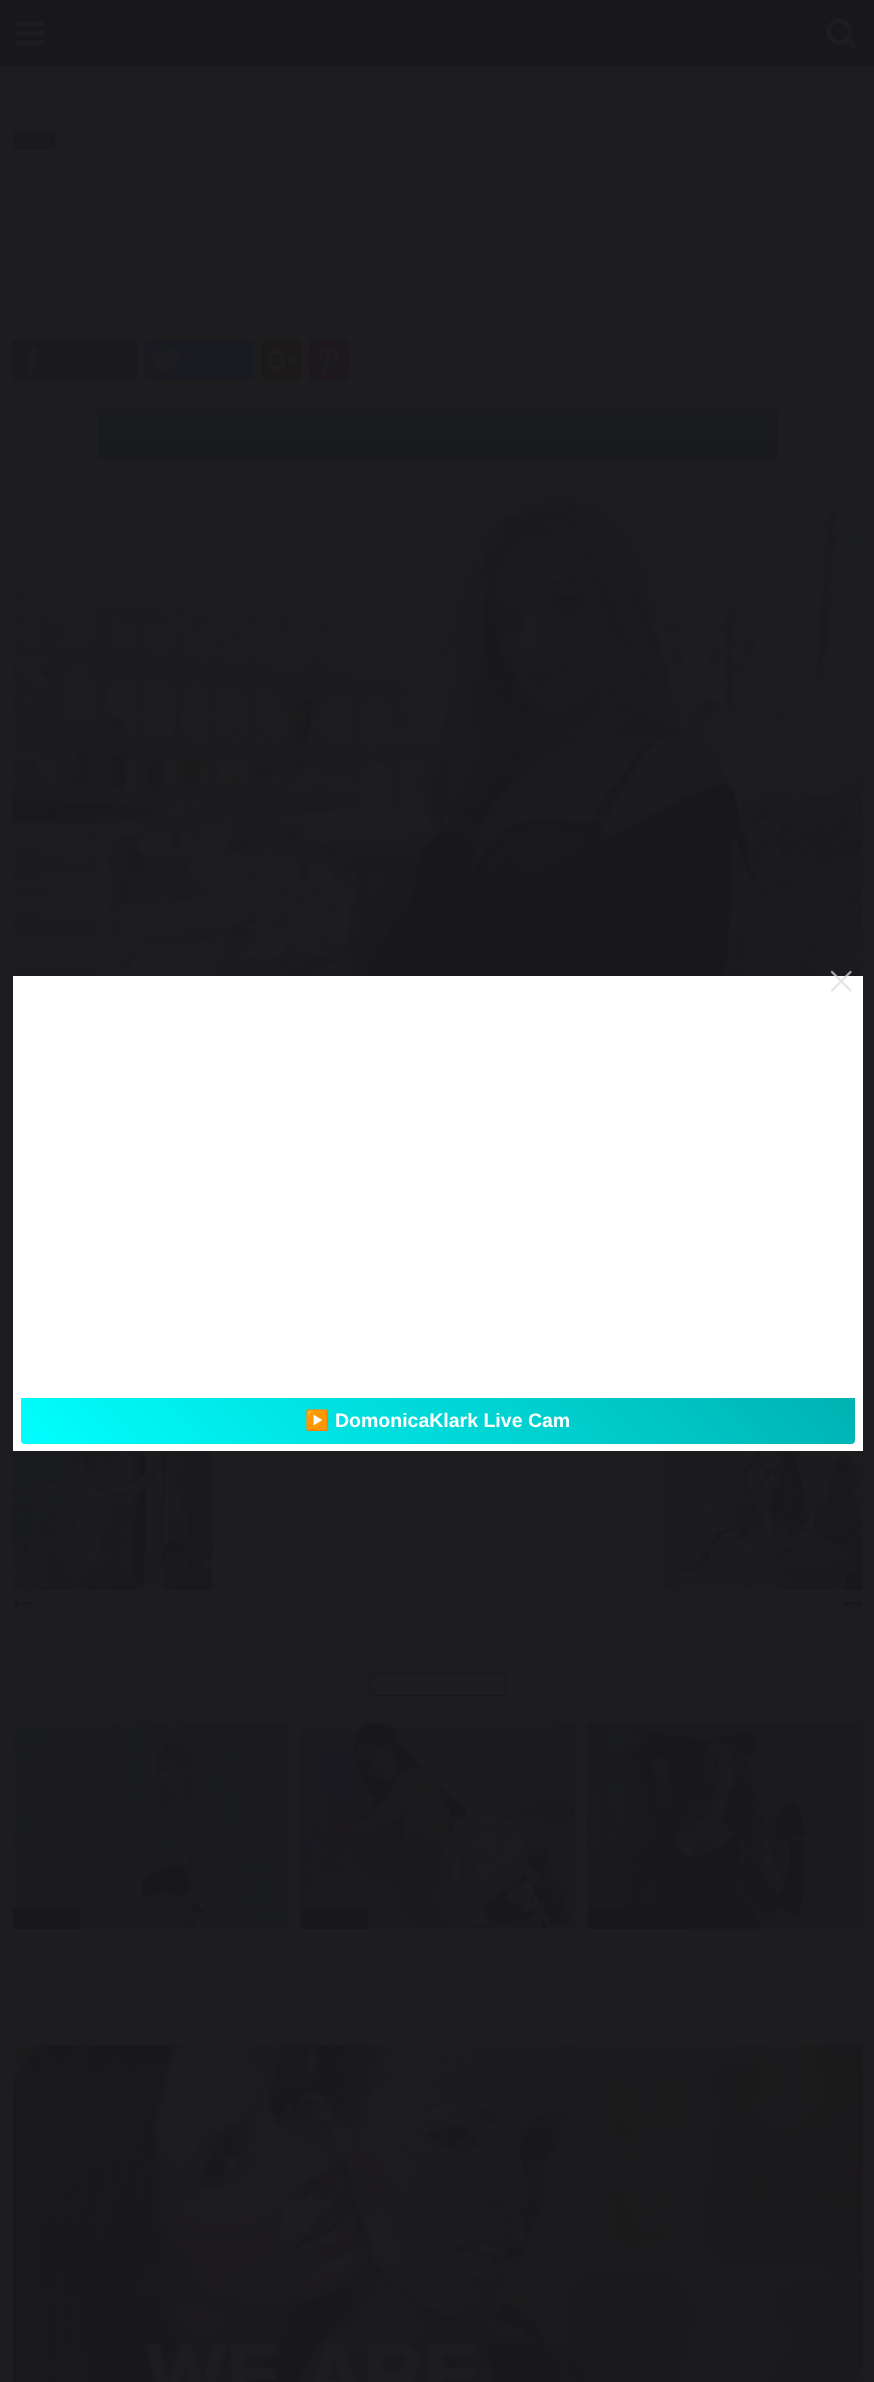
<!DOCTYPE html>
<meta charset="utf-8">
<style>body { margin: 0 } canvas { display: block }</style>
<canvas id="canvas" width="874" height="2382"></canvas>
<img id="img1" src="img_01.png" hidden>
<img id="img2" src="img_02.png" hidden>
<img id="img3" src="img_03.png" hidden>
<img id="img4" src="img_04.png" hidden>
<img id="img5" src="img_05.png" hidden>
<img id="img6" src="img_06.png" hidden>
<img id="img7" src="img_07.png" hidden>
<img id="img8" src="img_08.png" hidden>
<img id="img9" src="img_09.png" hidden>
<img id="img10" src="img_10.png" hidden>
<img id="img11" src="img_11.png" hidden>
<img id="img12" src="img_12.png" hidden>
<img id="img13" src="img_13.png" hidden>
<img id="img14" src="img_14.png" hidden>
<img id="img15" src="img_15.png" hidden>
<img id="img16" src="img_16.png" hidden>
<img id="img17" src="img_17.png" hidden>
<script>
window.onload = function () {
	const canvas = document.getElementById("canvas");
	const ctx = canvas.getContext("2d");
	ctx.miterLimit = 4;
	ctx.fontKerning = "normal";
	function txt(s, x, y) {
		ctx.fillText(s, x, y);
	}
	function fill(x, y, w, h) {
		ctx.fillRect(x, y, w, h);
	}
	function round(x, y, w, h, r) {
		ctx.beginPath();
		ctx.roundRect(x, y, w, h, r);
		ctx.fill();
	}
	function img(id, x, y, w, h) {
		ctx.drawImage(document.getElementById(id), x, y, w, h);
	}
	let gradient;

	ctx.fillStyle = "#1D1D20";
	fill(0, 0, 874, 2382);
	ctx.fillStyle = "#18181B";
	fill(0, 0, 874, 66);
	img("img1", 16, 21, 29, 24);
	img("img2", 826, 18, 32, 32);
	img("img3", 85, 101, 4, 8);
	img("img4", 117, 101, 5, 7);
	ctx.fillStyle = "#1A191E";
	round(13, 131, 42, 19, 4);
	ctx.fillStyle = "#19191E";
	round(13, 340, 125, 40, 4);
	img("img5", 12, 342, 27, 31);
	ctx.fillStyle = "#191B20";
	round(145, 340, 109, 40, 4);
	img("img6", 152, 348, 30, 25);
	img("img7", 261, 340, 41, 40);
	ctx.fillStyle = "#1C181B";
	round(309, 340, 40, 40, 4);
	img("img8", 308, 341, 41, 39);
	ctx.save();
	ctx.beginPath();
	ctx.roundRect(98, 410, 680, 49, 4);
	ctx.clip();
	gradient = ctx.createLinearGradient(438, 411, 438, 458);
	gradient.addColorStop(0, "#191B1C");
	gradient.addColorStop(1, "#191A1C");
	ctx.fillStyle = gradient;
	fill(98, 411, 680, 47);
	ctx.restore();
	ctx.beginPath();
	ctx.roundRect(98.5, 410.5, 679, 48, 3.5);
	ctx.strokeStyle = "#191A1C";
	ctx.stroke();
	img("img9", 12, 487, 851, 638);
	img("img10", 12, 1440, 201, 150);
	img("img11", 13, 1599, 19, 9);
	img("img12", 662, 1451, 201, 139);
	img("img13", 843, 1599, 19, 9);
	ctx.beginPath();
	ctx.roundRect(369.5, 1673.5, 136, 22, 3.5);
	ctx.strokeStyle = "#18181B";
	ctx.stroke();
	img("img14", 12, 1722, 276, 207);
	ctx.fillStyle = "#18181B";
	ctx.beginPath();
	ctx.roundRect(13, 1908, 67, 21, [0, 4, 0, 0]);
	ctx.fill();
	img("img15", 300, 1722, 275, 207);
	ctx.beginPath();
	ctx.roundRect(300, 1908, 68, 21, [0, 4, 0, 0]);
	ctx.fill();
	img("img16", 587, 1722, 276, 207);
	ctx.beginPath();
	ctx.roundRect(588, 1908, 98, 21, [0, 4, 0, 0]);
	ctx.fill();
	img("img17", 13, 2045, 850, 337);
	ctx.fillStyle = "#FFFFFF";
	fill(13, 976, 850, 475);
	ctx.beginPath();
	ctx.moveTo(850.5, 990.5);
	ctx.lineTo(832, 972);
	ctx.moveTo(850.5, 972);
	ctx.lineTo(832, 990.5);
	ctx.strokeStyle = "rgba(219, 219, 219, 0.75)";
	ctx.lineWidth = 2.3;
	ctx.lineCap = "round";
	ctx.lineJoin = "round";
	ctx.stroke();
	gradient = ctx.createLinearGradient(218, 1641, 658, 1201);
	gradient.addColorStop(0, "#00FFFF");
	gradient.addColorStop(1, "#00B2B2");
	ctx.fillStyle = gradient;
	ctx.beginPath();
	ctx.roundRect(21, 1398, 834, 46, [0, 0, 4, 4]);
	ctx.fill();
	ctx.font = "bold 19.5px Noto Color Emoji";
	ctx.fillStyle = "#FFFFFF";
	txt("▶️", 305, 1427);
	ctx.font = "bold 19.5px Liberation Sans";
	txt("DomonicaKlark Live Cam", 335, 1427);
};
</script>
